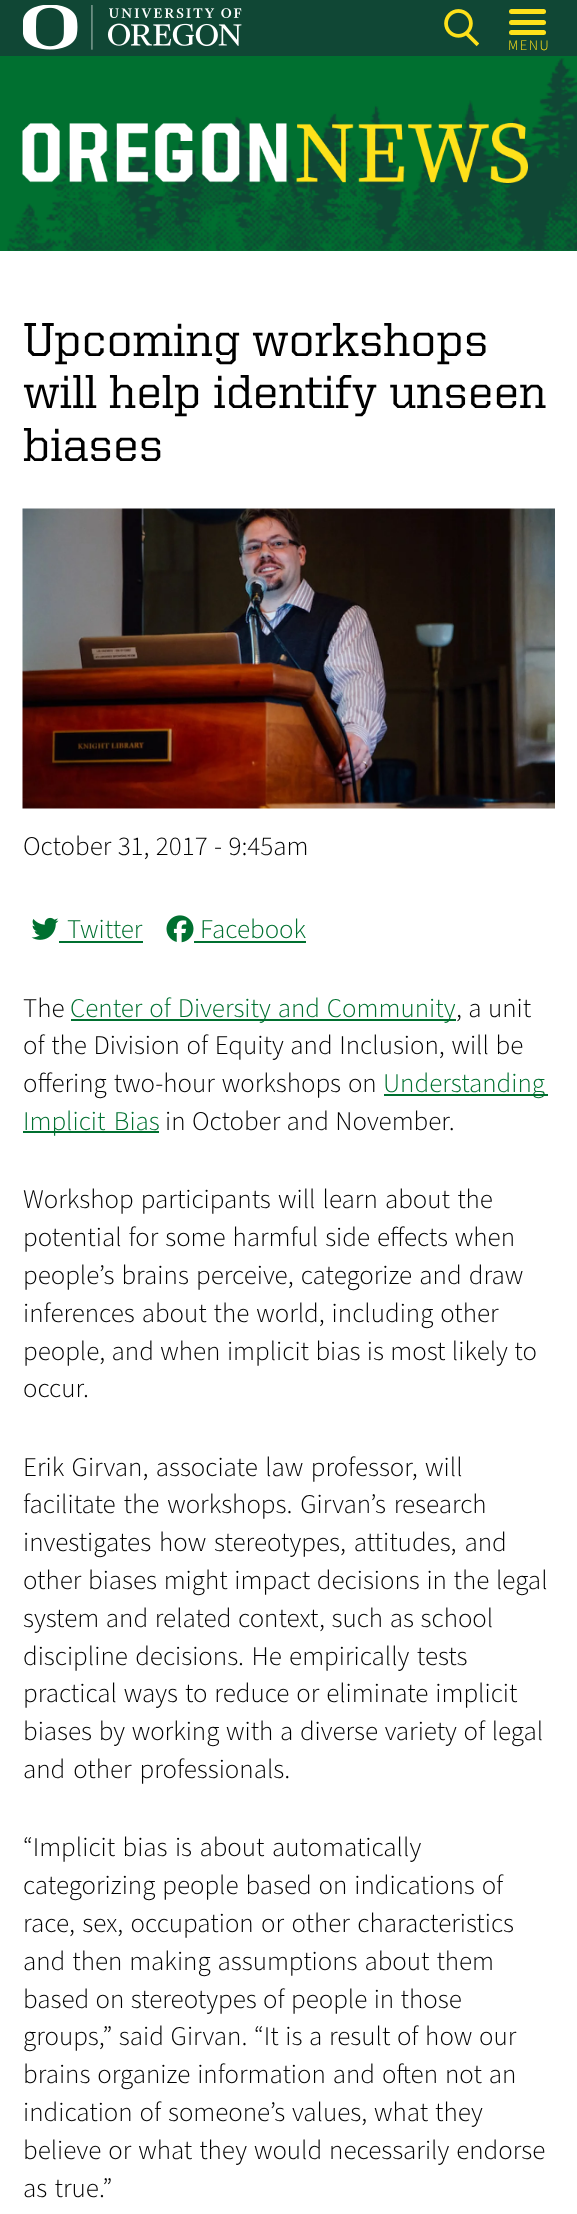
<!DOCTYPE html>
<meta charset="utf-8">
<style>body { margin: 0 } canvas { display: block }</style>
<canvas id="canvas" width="577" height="2214"></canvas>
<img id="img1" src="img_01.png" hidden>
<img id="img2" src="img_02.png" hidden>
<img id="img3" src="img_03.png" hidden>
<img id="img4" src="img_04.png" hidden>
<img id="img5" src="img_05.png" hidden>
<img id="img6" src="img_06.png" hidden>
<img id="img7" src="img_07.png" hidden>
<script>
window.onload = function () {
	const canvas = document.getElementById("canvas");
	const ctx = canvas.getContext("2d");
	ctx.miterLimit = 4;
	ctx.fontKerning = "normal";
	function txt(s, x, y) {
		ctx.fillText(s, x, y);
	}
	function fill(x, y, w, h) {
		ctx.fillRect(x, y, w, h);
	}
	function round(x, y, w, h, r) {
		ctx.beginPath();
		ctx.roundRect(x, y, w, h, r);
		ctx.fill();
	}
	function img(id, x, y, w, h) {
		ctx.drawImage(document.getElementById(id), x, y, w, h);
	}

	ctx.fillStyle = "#104735";
	fill(0, 0, 577, 2214);
	img("img1", 23, 5, 219, 45);
	img("img2", 444, 9, 35, 38);
	ctx.fillStyle = "#FEE11A";
	round(509, 9, 37, 5, 2.5);
	round(509, 20, 37, 5, 2.5);
	round(509, 30, 37, 5, 2.5);
	ctx.fillStyle = "#FFFFFF";
	fill(0, 251, 577, 1963);
	ctx.fillStyle = "#007030";
	fill(0, 56, 577, 195);
	img("img3", 7, 58, 570, 193);
	img("img4", 22, 123, 506, 60);
	img("img5", 22, 508, 533, 301);
	img("img6", 31, 917, 28, 23);
	fill(59, 941, 84, 2);
	img("img7", 166, 915, 28, 28);
	fill(194, 941, 112, 2);
	fill(71, 1019, 385, 2);
	fill(384, 1094, 164, 2);
	fill(23, 1131, 136, 2);
	ctx.letterSpacing = "1.5px";
	ctx.font = "300 14.5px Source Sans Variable";
	ctx.fillStyle = "#FEE11A";
	txt("MENU", 508, 50);
	ctx.letterSpacing = "0px";
	ctx.font = "500 48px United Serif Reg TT";
	ctx.fillStyle = "#000000";
	txt("Upcoming workshops", 23, 356);
	txt("will help identify unseen", 23, 408);
	txt("biases", 23, 461);
	ctx.wordSpacing = "1px";
	ctx.font = "300 27px Source Sans Variable";
	txt("October 31, 2017 - 9:45am", 23, 855);
	ctx.wordSpacing = "0px";
	ctx.fillStyle = "#007030";
	txt("Twitter", 67, 938);
	txt("Facebook", 200, 938);
	ctx.fillStyle = "#000000";
	txt("The", 23, 1017);
	ctx.wordSpacing = "1.5px";
	ctx.fillStyle = "#007030";
	txt("Center of Diversity and Community", 70, 1017);
	ctx.wordSpacing = "1px";
	ctx.fillStyle = "#000000";
	txt(", a unit", 456, 1017);
	ctx.wordSpacing = "1.25px";
	txt("of the Division of Equity and Inclusion, will be", 23, 1054);
	ctx.wordSpacing = "1.5px";
	txt("offering two-hour workshops on", 23, 1092);
	ctx.wordSpacing = "0px";
	ctx.fillStyle = "#007030";
	txt("Understanding", 383, 1092);
	ctx.wordSpacing = "3px";
	txt("Implicit Bias", 23, 1130);
	ctx.wordSpacing = "1px";
	ctx.fillStyle = "#000000";
	txt("in October and November.", 165, 1130);
	ctx.wordSpacing = "1.75px";
	txt("Workshop participants will learn about the", 23, 1208);
	ctx.wordSpacing = "1.5px";
	txt("potential for some harmful side effects when", 23, 1246);
	ctx.wordSpacing = "1.75px";
	txt("people’s brains perceive, categorize and draw", 23, 1284);
	ctx.wordSpacing = "1.5px";
	txt("inferences about the world, including other", 23, 1322);
	ctx.wordSpacing = "1px";
	txt("people, and when implicit bias is most likely to", 23, 1360);
	ctx.wordSpacing = "0px";
	txt("occur.", 23, 1397);
	ctx.wordSpacing = "2px";
	txt("Erik Girvan, associate law professor, will", 23, 1476);
	ctx.wordSpacing = "2.5px";
	txt("facilitate the workshops. Girvan’s research", 23, 1513);
	txt("investigates how stereotypes, attitudes, and", 23, 1551);
	ctx.wordSpacing = "1.25px";
	txt("other biases might impact decisions in the legal", 23, 1589);
	txt("system and related context, such as school", 23, 1627);
	ctx.wordSpacing = "2px";
	txt("discipline decisions. He empirically tests", 23, 1665);
	ctx.wordSpacing = "1.5px";
	txt("practical ways to reduce or eliminate implicit", 23, 1702);
	ctx.wordSpacing = "1.25px";
	txt("biases by working with a diverse variety of legal", 23, 1740);
	ctx.wordSpacing = "2.5px";
	txt("and other professionals.", 23, 1778);
	ctx.wordSpacing = "2px";
	txt("“Implicit bias is about automatically", 23, 1856);
	ctx.wordSpacing = "1.5px";
	txt("categorizing people based on indications of", 23, 1894);
	ctx.wordSpacing = "2px";
	txt("race, sex, occupation or other characteristics", 23, 1932);
	ctx.wordSpacing = "1.5px";
	txt("and then making assumptions about them", 23, 1970);
	ctx.wordSpacing = "1px";
	txt("based on stereotypes of people in those", 23, 2008);
	ctx.wordSpacing = "1.25px";
	txt("groups,” said Girvan. “It is a result of how our", 23, 2045);
	ctx.wordSpacing = "1.5px";
	txt("brains organize information and often not an", 23, 2083);
	txt("indication of someone’s values, what they", 23, 2121);
	txt("believe or what they would necessarily endorse", 23, 2159);
	ctx.wordSpacing = "2px";
	txt("as true.”", 23, 2197);
};
</script>
